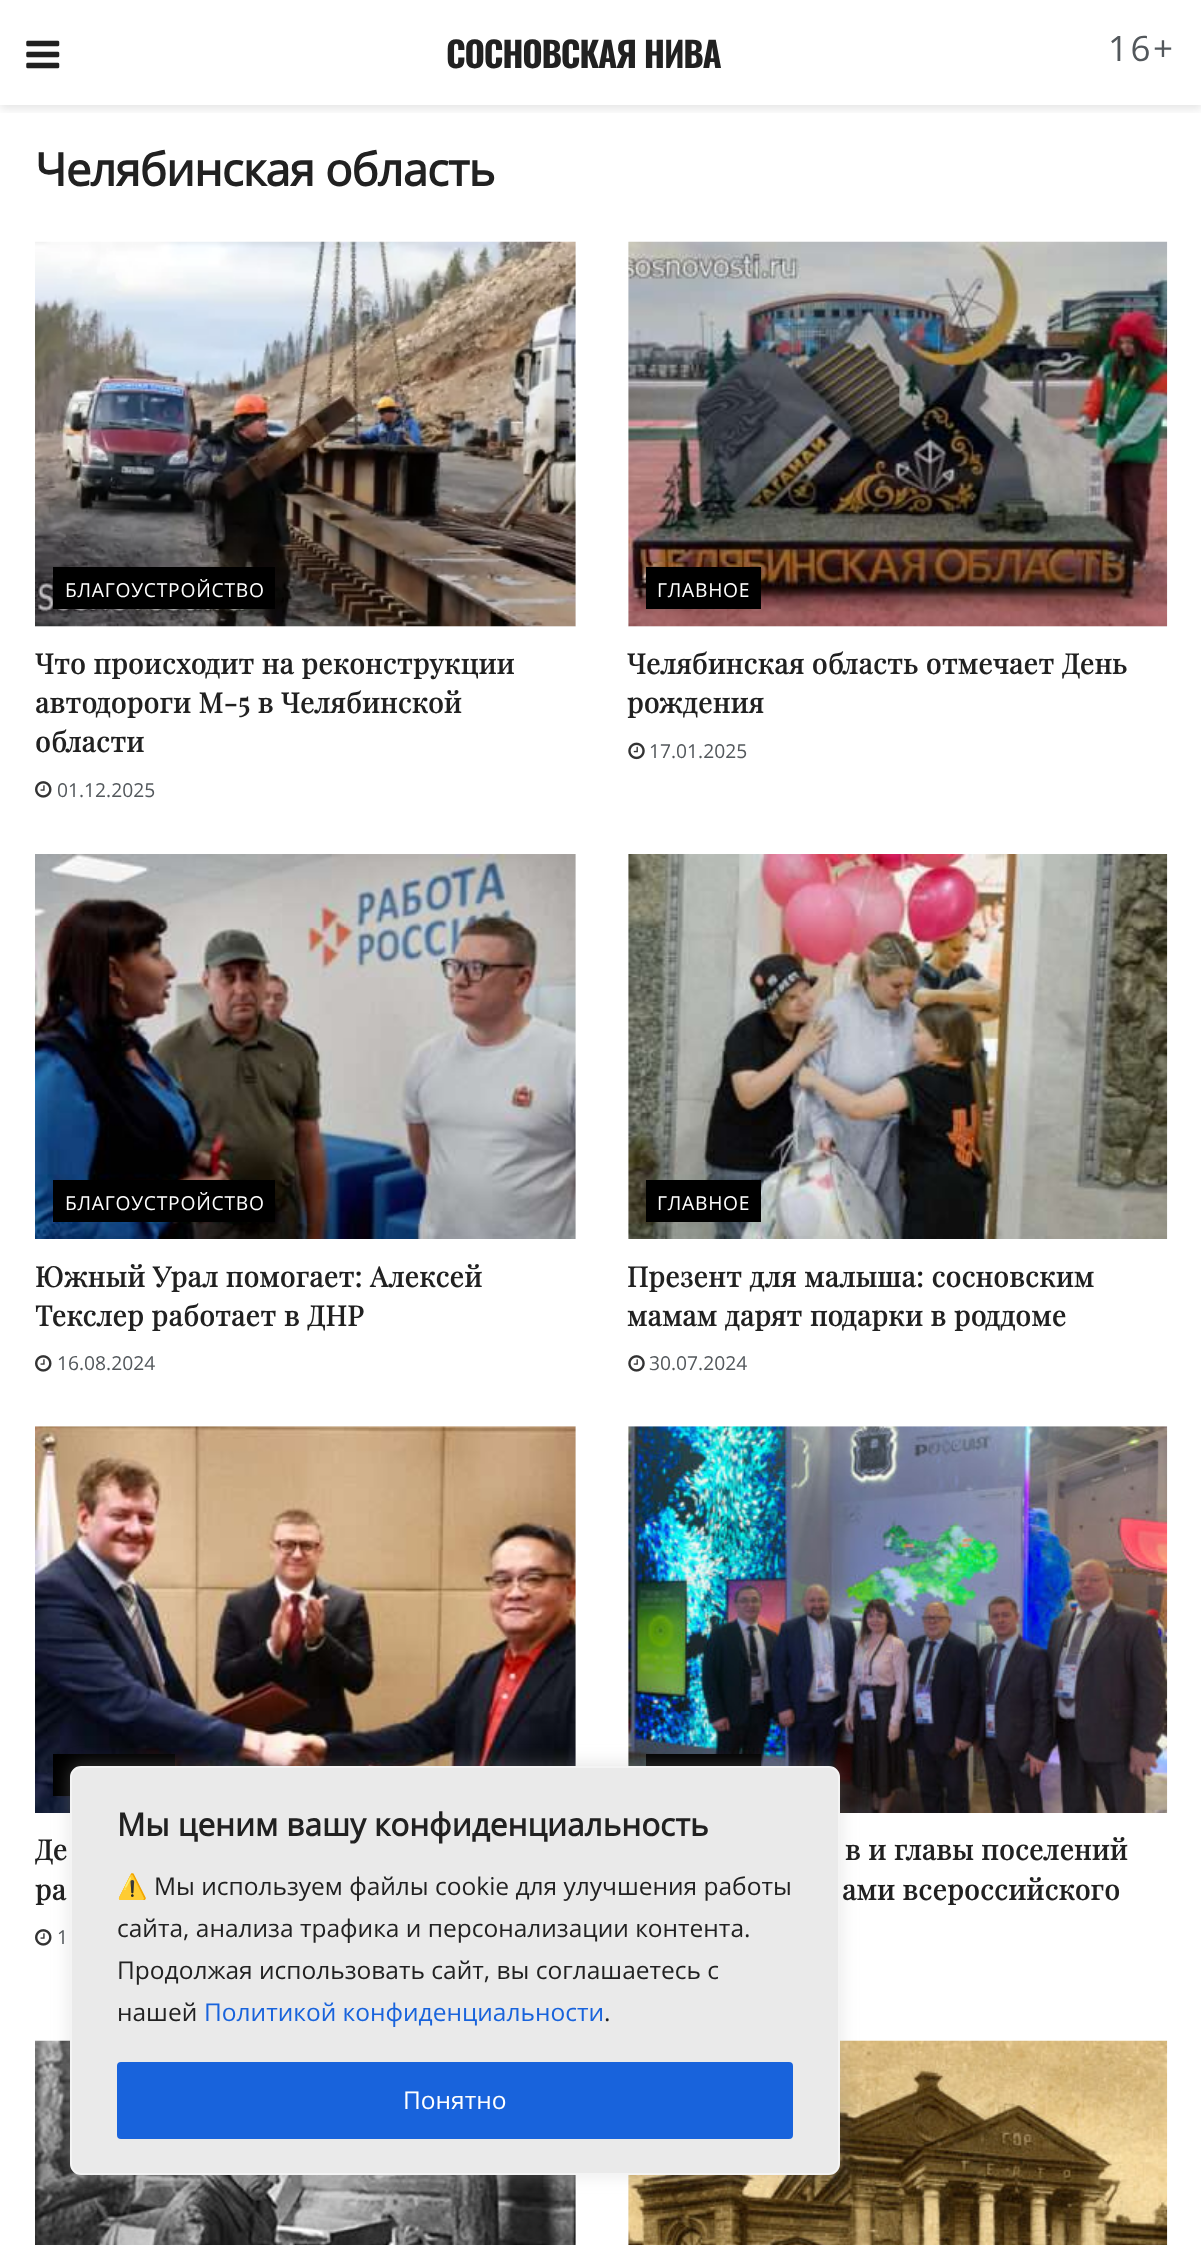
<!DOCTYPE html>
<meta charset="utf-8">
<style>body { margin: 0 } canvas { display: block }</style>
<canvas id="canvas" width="1201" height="2245"></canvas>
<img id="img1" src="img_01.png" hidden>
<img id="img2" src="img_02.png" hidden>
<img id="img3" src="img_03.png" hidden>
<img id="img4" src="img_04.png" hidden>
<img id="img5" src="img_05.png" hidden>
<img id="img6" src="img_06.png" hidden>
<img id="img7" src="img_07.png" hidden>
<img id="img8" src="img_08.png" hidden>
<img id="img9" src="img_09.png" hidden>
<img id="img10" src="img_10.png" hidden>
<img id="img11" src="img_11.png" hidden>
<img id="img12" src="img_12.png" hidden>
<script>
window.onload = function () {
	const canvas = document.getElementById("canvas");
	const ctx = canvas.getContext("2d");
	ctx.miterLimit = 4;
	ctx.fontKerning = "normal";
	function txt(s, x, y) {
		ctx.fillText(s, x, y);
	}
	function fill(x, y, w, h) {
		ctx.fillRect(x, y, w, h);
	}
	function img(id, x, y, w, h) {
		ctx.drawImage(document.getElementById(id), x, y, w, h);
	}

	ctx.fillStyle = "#FFFFFF";
	fill(0, 0, 1201, 2245);
	ctx.save();
	ctx.beginPath();
	ctx.rect(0, 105, 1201, 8);
	ctx.clip();
	ctx.fillStyle = "rgba(0, 0, 0, 0.1)";
	ctx.filter = "blur(5px)";
	ctx.beginPath();
	ctx.rect(0, 4, 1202, 105);
	ctx.fill();
	ctx.filter = "none";
	ctx.restore();
	img("img1", 26, 40, 34, 29);
	ctx.fillStyle = "#F7F7F7";
	fill(35, 242, 541, 385);
	img("img2", 35, 241, 541, 386);
	ctx.fillStyle = "#000000";
	fill(53, 567, 222, 42);
	img("img3", 35, 781, 17, 17);
	ctx.fillStyle = "#F7F7F7";
	fill(628, 242, 539, 385);
	img("img4", 628, 241, 540, 386);
	ctx.fillStyle = "#000000";
	fill(646, 567, 115, 42);
	img("img5", 628, 742, 17, 18);
	ctx.fillStyle = "#F7F7F7";
	fill(575, 854, 1, 385);
	img("img6", 35, 854, 541, 385);
	ctx.fillStyle = "#000000";
	fill(53, 1180, 222, 42);
	img("img3", 35, 1355, 17, 17);
	ctx.fillStyle = "#F7F7F7";
	fill(628, 854, 1, 385);
	img("img7", 628, 854, 540, 385);
	ctx.fillStyle = "#000000";
	fill(646, 1180, 115, 42);
	img("img8", 628, 1355, 17, 17);
	ctx.fillStyle = "#F7F7F7";
	fill(35, 1426, 541, 340);
	img("img9", 35, 1426, 541, 387);
	ctx.fillStyle = "#000000";
	fill(53, 1754, 122, 42);
	img("img3", 35, 1929, 17, 17);
	ctx.fillStyle = "#F7F7F7";
	fill(628, 1426, 539, 340);
	img("img10", 628, 1426, 540, 387);
	ctx.fillStyle = "#000000";
	fill(646, 1754, 115, 12);
	ctx.fillStyle = "#F7F7F7";
	fill(575, 2175, 1, 70);
	img("img11", 35, 2040, 541, 205);
	fill(628, 2175, 1, 70);
	img("img12", 628, 2040, 540, 205);
	ctx.fillStyle = "rgba(172, 171, 171, 0.3)";
	ctx.filter = "blur(9px)";
	ctx.beginPath();
	ctx.roundRect(70, 1764, 770, 410, 11);
	ctx.fill();
	ctx.filter = "none";
	ctx.fillStyle = "#EAEAEA";
	ctx.beginPath();
	ctx.roundRect(71, 1767, 768, 407, 10);
	ctx.fill();
	ctx.strokeStyle = "#F4F4F4";
	ctx.lineWidth = 2;
	ctx.stroke();
	ctx.fillStyle = "#1863DC";
	ctx.beginPath();
	ctx.roundRect(119, 2064, 672, 73, 2);
	ctx.fill();
	ctx.strokeStyle = "#1863DC";
	ctx.lineWidth = 4;
	ctx.stroke();
	ctx.letterSpacing = "-1.25px";
	ctx.font = "bold 35px Oswald";
	ctx.fillStyle = "#212121";
	txt("СОСНОВСКАЯ НИВА", 446, 68);
	ctx.letterSpacing = "2.5px";
	ctx.font = "35px Open Sans";
	ctx.fillStyle = "#53585C";
	txt("16+", 1108, 61);
	ctx.letterSpacing = "-0.9px";
	ctx.font = "bold 45.5px Open Sans";
	ctx.fillStyle = "#212121";
	txt("Челябинская область", 35, 186);
	ctx.letterSpacing = "0.75px";
	ctx.font = "19.25px Open Sans";
	ctx.fillStyle = "#FFFFFF";
	txt("БЛАГОУСТРОЙСТВО", 65, 597);
	ctx.letterSpacing = "0.55px";
	ctx.font = "bold 28px Playfair Display";
	ctx.fillStyle = "#212121";
	txt("Что происходит на реконструкции", 35, 674);
	txt("автодороги М-5 в Челябинской", 35, 713);
	txt("области", 35, 752);
	ctx.letterSpacing = "0px";
	ctx.font = "19.25px Open Sans";
	ctx.fillStyle = "#53585C";
	txt("01.12.2025", 57, 797);
	ctx.letterSpacing = "0.75px";
	ctx.fillStyle = "#FFFFFF";
	txt("ГЛАВНОЕ", 657, 597);
	ctx.letterSpacing = "0.55px";
	ctx.font = "bold 28px Playfair Display";
	ctx.fillStyle = "#212121";
	txt("Челябинская область отмечает День", 627, 674);
	txt("рождения", 627, 713);
	ctx.letterSpacing = "0px";
	ctx.font = "19.25px Open Sans";
	ctx.fillStyle = "#53585C";
	txt("17.01.2025", 649, 758);
	ctx.letterSpacing = "0.75px";
	ctx.fillStyle = "#FFFFFF";
	txt("БЛАГОУСТРОЙСТВО", 65, 1210);
	ctx.letterSpacing = "0.55px";
	ctx.font = "bold 28px Playfair Display";
	ctx.fillStyle = "#212121";
	txt("Южный Урал помогает: Алексей", 35, 1287);
	txt("Текслер работает в ДНР", 35, 1326);
	ctx.letterSpacing = "0px";
	ctx.font = "19.25px Open Sans";
	ctx.fillStyle = "#53585C";
	txt("16.08.2024", 57, 1370);
	ctx.letterSpacing = "0.75px";
	ctx.fillStyle = "#FFFFFF";
	txt("ГЛАВНОЕ", 657, 1210);
	ctx.letterSpacing = "0.55px";
	ctx.font = "bold 28px Playfair Display";
	ctx.fillStyle = "#212121";
	txt("Презент для малыша: сосновским", 627, 1287);
	txt("мамам дарят подарки в роддоме", 627, 1326);
	ctx.letterSpacing = "0px";
	ctx.font = "19.25px Open Sans";
	ctx.fillStyle = "#53585C";
	txt("30.07.2024", 649, 1370);
	ctx.letterSpacing = "0.55px";
	ctx.font = "bold 28px Playfair Display";
	ctx.fillStyle = "#212121";
	txt("Де", 35, 1860);
	txt("ра", 35, 1900);
	ctx.letterSpacing = "0px";
	ctx.font = "19.25px Open Sans";
	ctx.fillStyle = "#53585C";
	txt("1", 57, 1944);
	ctx.letterSpacing = "0.55px";
	ctx.font = "bold 28px Playfair Display";
	ctx.fillStyle = "#212121";
	txt("в и главы поселений", 845, 1860);
	txt("ами всероссийского", 842, 1900);
	ctx.letterSpacing = "0px";
	ctx.font = "bold 31.5px Open Sans";
	txt("Мы ценим вашу конфиденциальность", 117, 1836);
	ctx.font = "24.5px Noto Color Emoji";
	txt("⚠️", 117, 1895);
	ctx.font = "24.5px Open Sans";
	txt("Мы используем файлы cookie для улучшения работы", 154, 1895);
	txt("сайта, анализа трафика и персонализации контента.", 117, 1937);
	txt("Продолжая использовать сайт, вы соглашаетесь с", 117, 1979);
	txt("нашей", 117, 2021);
	ctx.fillStyle = "#1863DC";
	txt("Политикой конфиденциальности", 204, 2021);
	ctx.fillStyle = "#212121";
	txt(".", 604, 2021);
	ctx.fillStyle = "#FFFFFF";
	txt("Понятно", 403, 2109);
};
</script>
